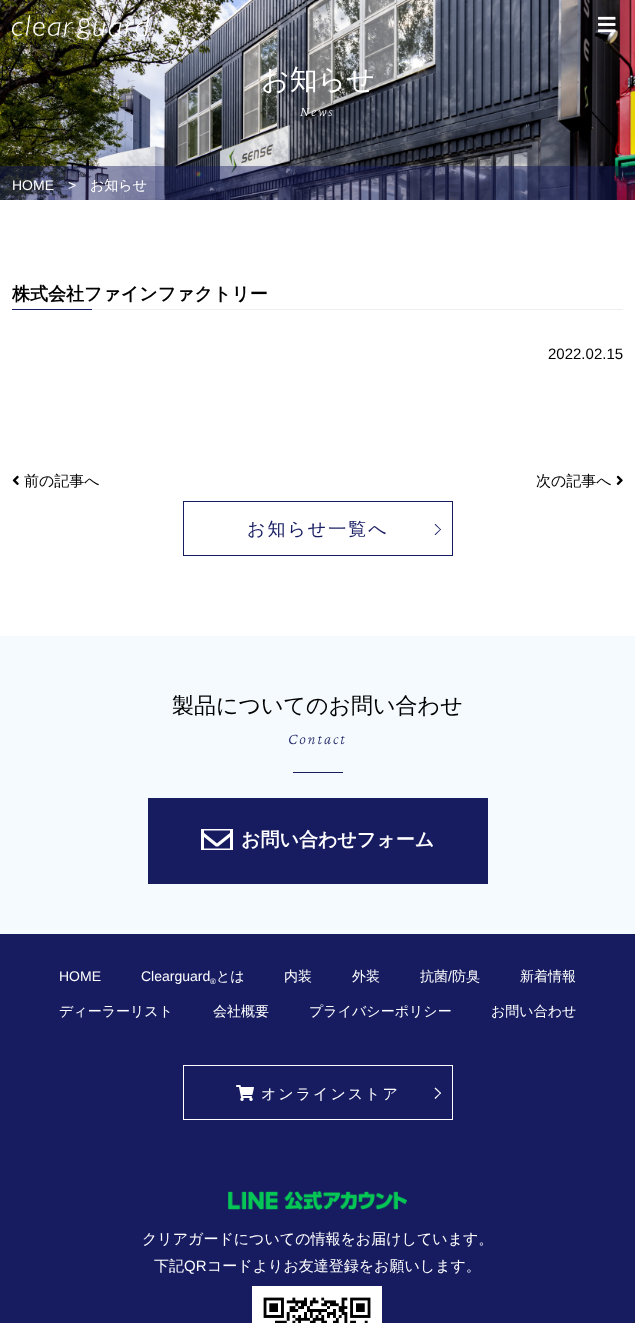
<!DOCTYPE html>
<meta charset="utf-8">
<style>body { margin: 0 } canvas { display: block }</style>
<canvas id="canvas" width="635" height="1323"></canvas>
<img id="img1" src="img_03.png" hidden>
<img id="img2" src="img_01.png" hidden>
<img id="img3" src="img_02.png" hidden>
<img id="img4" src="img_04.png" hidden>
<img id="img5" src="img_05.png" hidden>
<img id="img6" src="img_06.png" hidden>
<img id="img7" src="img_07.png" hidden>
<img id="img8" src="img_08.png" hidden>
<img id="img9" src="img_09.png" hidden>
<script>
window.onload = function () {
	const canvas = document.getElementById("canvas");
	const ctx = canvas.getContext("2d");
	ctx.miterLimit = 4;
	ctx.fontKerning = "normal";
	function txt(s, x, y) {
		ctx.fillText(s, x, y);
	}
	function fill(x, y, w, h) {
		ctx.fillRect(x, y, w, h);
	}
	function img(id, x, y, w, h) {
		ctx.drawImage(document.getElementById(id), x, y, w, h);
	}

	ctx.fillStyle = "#FFFFFF";
	fill(0, 0, 635, 1323);
	img("img1", 0, 0, 635, 200);
	img("img2", 12, 15, 140, 24);
	img("img3", 598, 16, 18, 17);
	ctx.fillStyle = "rgba(23, 28, 97, 0.45)";
	fill(0, 166, 635, 34);
	ctx.fillStyle = "#EFEFEF";
	fill(92, 309, 531, 1);
	ctx.fillStyle = "#171C61";
	fill(12, 309, 80, 1);
	img("img4", 12, 475, 7, 10);
	img("img5", 616, 475, 7, 10);
	ctx.strokeStyle = "#171C61";
	ctx.strokeRect(183.5, 501.5, 269, 54);
	ctx.beginPath();
	ctx.moveTo(435.5, 524);
	ctx.lineTo(441, 529.5);
	ctx.lineTo(440.5, 530);
	ctx.lineTo(434.5, 524.5);
	ctx.closePath();
	ctx.fill();
	ctx.beginPath();
	ctx.moveTo(440.5, 529);
	ctx.lineTo(441, 529.5);
	ctx.lineTo(435.5, 535);
	ctx.lineTo(434.5, 534.5);
	ctx.closePath();
	ctx.fill();
	ctx.fillStyle = "#F4FAFD";
	fill(0, 636, 635, 298);
	ctx.fillStyle = "#171C61";
	fill(293, 772, 50, 1);
	fill(148, 798, 340, 86);
	img("img6", 201, 829, 32, 21);
	fill(0, 934, 635, 389);
	ctx.strokeStyle = "#FFFFFF";
	ctx.strokeRect(183.5, 1065.5, 269, 54);
	img("img7", 236, 1085, 18, 16);
	ctx.fillStyle = "#FFFFFF";
	ctx.beginPath();
	ctx.moveTo(435.5, 1087.5);
	ctx.lineTo(441, 1093);
	ctx.lineTo(440.5, 1094);
	ctx.lineTo(434.5, 1088.5);
	ctx.closePath();
	ctx.fill();
	ctx.beginPath();
	ctx.moveTo(440.5, 1092.5);
	ctx.lineTo(441, 1093);
	ctx.lineTo(435.5, 1099);
	ctx.lineTo(434.5, 1098);
	ctx.closePath();
	ctx.fill();
	img("img8", 228, 1191, 179, 19);
	img("img9", 252, 1286, 130, 37);
	ctx.font = "500 28px WenQuanYi Zen Hei";
	txt("お知らせ", 261, 89);
	ctx.letterSpacing = "2px";
	ctx.font = "italic 200 14px Crimson Pro";
	txt("News", 300, 116);
	ctx.letterSpacing = "0px";
	ctx.font = "14px Liberation Sans";
	txt("HOME", 12, 190);
	txt(">", 68, 190);
	ctx.font = "500 14px WenQuanYi Zen Hei";
	txt("お知らせ", 90, 190);
	ctx.font = "bold 18px WenQuanYi Zen Hei";
	ctx.fillStyle = "#000000";
	txt("株式会社ファインファクトリー", 12, 300);
	ctx.font = "15px Liberation Sans";
	txt("2022.02.15", 548, 359);
	ctx.font = "500 15px WenQuanYi Zen Hei";
	txt("前の記事へ", 24, 486);
	txt("次の記事へ", 536, 486);
	ctx.letterSpacing = "2px";
	ctx.font = "500 18px WenQuanYi Zen Hei";
	ctx.fillStyle = "#171C61";
	txt("お知らせ一覧へ", 247, 535);
	ctx.letterSpacing = "0px";
	ctx.font = "500 22px WenQuanYi Zen Hei";
	ctx.fillStyle = "#000000";
	txt("製品についてのお問い合わせ", 172, 713);
	ctx.letterSpacing = "2px";
	ctx.font = "italic 200 16px Crimson Pro";
	ctx.fillStyle = "#171C61";
	txt("Contact", 288, 744);
	ctx.letterSpacing = "0px";
	ctx.font = "bold 19px WenQuanYi Zen Hei";
	ctx.fillStyle = "#FFFFFF";
	txt("お問い合わせフォーム", 241, 846);
	ctx.font = "14px Liberation Sans";
	txt("HOME", 59, 981);
	txt("Clearguard", 141, 981);
	ctx.font = "8px Liberation Sans";
	txt("®", 210, 984);
	ctx.font = "500 14px WenQuanYi Zen Hei";
	txt("とは", 216, 981);
	txt("内装", 284, 981);
	txt("外装", 352, 981);
	txt("抗菌", 420, 981);
	ctx.font = "14px Liberation Sans";
	txt("/", 448, 981);
	ctx.font = "500 14px WenQuanYi Zen Hei";
	txt("防臭", 452, 981);
	txt("新着情報", 520, 981);
	txt("ディーラーリスト", 59, 1016);
	txt("会社概要", 213, 1016);
	txt("プライバシーポリシー", 309, 1016);
	txt("お問い合わせ", 491, 1016);
	ctx.letterSpacing = "2px";
	ctx.font = "500 15px WenQuanYi Zen Hei";
	txt("オンラインストア", 261, 1099);
	ctx.letterSpacing = "0px";
	txt("クリアガードについての情報をお届けしています。", 142, 1244);
	txt("下記", 154, 1271);
	ctx.font = "15px Liberation Sans";
	txt("QR", 184, 1271);
	ctx.font = "500 15px WenQuanYi Zen Hei";
	txt("コードよりお友達登録をお願いします。", 207, 1271);
};
</script>
